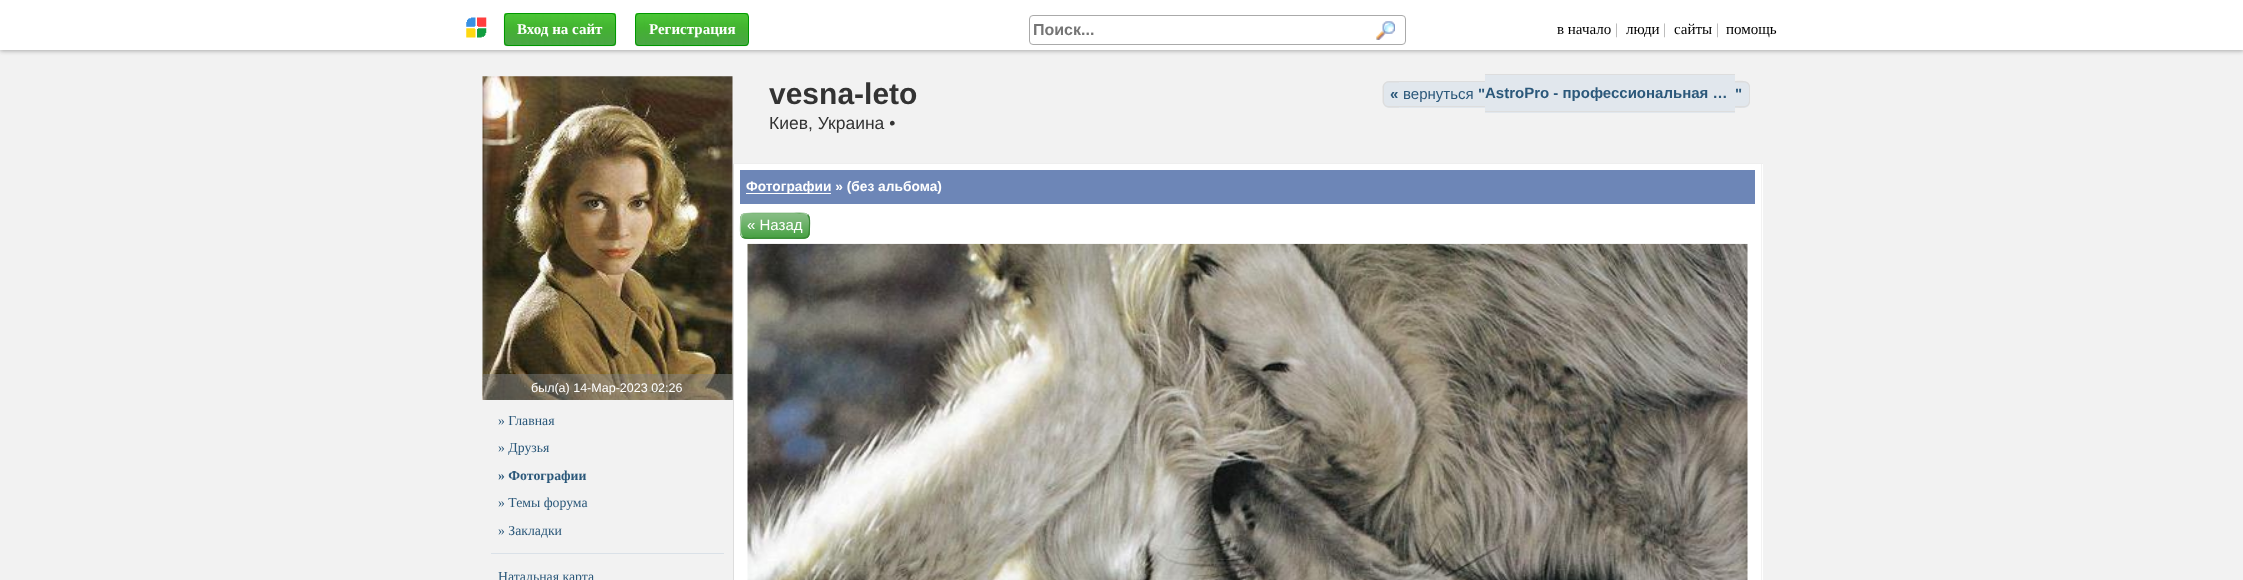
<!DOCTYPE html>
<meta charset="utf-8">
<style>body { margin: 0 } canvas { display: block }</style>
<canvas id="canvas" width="2243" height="580"></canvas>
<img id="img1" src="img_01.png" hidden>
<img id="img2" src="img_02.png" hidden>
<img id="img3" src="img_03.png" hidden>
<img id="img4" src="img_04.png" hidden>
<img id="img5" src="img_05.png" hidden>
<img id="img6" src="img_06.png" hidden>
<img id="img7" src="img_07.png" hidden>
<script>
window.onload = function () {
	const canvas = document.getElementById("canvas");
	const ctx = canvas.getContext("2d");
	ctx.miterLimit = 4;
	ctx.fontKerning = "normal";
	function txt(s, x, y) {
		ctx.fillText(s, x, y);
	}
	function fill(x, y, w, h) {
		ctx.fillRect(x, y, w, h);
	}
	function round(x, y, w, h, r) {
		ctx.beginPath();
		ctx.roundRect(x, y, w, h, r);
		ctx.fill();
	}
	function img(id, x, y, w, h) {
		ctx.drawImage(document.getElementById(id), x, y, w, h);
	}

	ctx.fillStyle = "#F2F2F2";
	fill(0, 0, 2243, 580);
	ctx.fillStyle = "#AAAAAA";
	ctx.filter = "blur(2px)";
	ctx.beginPath();
	ctx.rect(0, 1, 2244, 50);
	ctx.fill();
	ctx.filter = "none";
	ctx.fillStyle = "#FFFFFF";
	fill(0, 0, 2243, 50);
	img("img1", 466, 17, 21, 21);
	img("img2", 503, 13, 114, 34);
	ctx.beginPath();
	ctx.roundRect(504.5, 13.5, 111, 32, 3.5);
	ctx.strokeStyle = "#009900";
	ctx.stroke();
	img("img3", 635, 13, 114, 34);
	ctx.beginPath();
	ctx.roundRect(635.5, 13.5, 113, 32, 3.5);
	ctx.stroke();
	ctx.beginPath();
	ctx.roundRect(1029.5, 15.5, 376, 29, 3.5);
	ctx.strokeStyle = "#AAAAAA";
	ctx.stroke();
	img("img4", 1376, 21, 19, 19);
	ctx.fillStyle = "#E1E7ED";
	ctx.beginPath();
	ctx.roundRect(1383, 81, 16, 27, [6, 0, 0, 6]);
	ctx.fill();
	ctx.fillStyle = "#DDDDDD";
	ctx.beginPath();
	ctx.moveTo(1389, 81);
	ctx.lineTo(1399, 81);
	ctx.lineTo(1399, 107.5);
	ctx.lineTo(1389, 107.5);
	ctx.bezierCurveTo(1385.5, 107.5, 1382.5, 104.5, 1382.5, 101);
	ctx.lineTo(1382.5, 87.5);
	ctx.bezierCurveTo(1382.5, 84, 1385.5, 81, 1389, 81);
	ctx.closePath();
	ctx.moveTo(1389, 82.5);
	ctx.lineTo(1399, 82.5);
	ctx.lineTo(1399, 106);
	ctx.lineTo(1389, 106);
	ctx.bezierCurveTo(1386, 106, 1384, 104, 1384, 101);
	ctx.lineTo(1384, 87.5);
	ctx.bezierCurveTo(1384, 84.5, 1386, 82.5, 1389, 82.5);
	ctx.closePath();
	ctx.fill("evenodd");
	ctx.fillStyle = "#E1E7ED";
	fill(1399, 82, 79, 26);
	ctx.fillStyle = "#DDDDDD";
	fill(1399, 81, 79, 1);
	fill(1399, 106, 79, 1);
	ctx.fillStyle = "#E1E7ED";
	fill(1478, 81, 7, 27);
	ctx.fillStyle = "#DDDDDD";
	fill(1478, 81, 7, 1);
	fill(1478, 106, 7, 1);
	ctx.fillStyle = "#E1E7ED";
	fill(1485, 75, 250, 38);
	ctx.fillStyle = "#DDDDDD";
	fill(1485, 74, 250, 1);
	fill(1485, 111, 250, 1);
	ctx.fillStyle = "#E1E7ED";
	ctx.beginPath();
	ctx.roundRect(1735, 81, 15, 27, [0, 6, 6, 0]);
	ctx.fill();
	ctx.fillStyle = "#DDDDDD";
	ctx.beginPath();
	ctx.moveTo(1735, 81);
	ctx.bezierCurveTo(1740, 81, 1748.5, 79.5, 1750, 86);
	ctx.lineTo(1750, 102.5);
	ctx.bezierCurveTo(1748.5, 109, 1740, 107.5, 1735, 107.5);
	ctx.closePath();
	ctx.moveTo(1735, 82.5);
	ctx.lineTo(1744, 82.5);
	ctx.bezierCurveTo(1746.5, 82.5, 1749, 84.5, 1749, 87.5);
	ctx.lineTo(1749, 101);
	ctx.bezierCurveTo(1749, 104, 1746.5, 106, 1744, 106);
	ctx.lineTo(1735, 106);
	ctx.closePath();
	ctx.fill("evenodd");
	ctx.fillStyle = "#EEEEEE";
	fill(733, 163, 1030, 1);
	ctx.fillStyle = "#FFFFFF";
	fill(734, 164, 1029, 416);
	ctx.fillStyle = "#F2F2F2";
	fill(1761, 164, 1, 416);
	ctx.fillStyle = "#DDDDDD";
	fill(733, 164, 1, 416);
	ctx.fillStyle = "#6D86B7";
	fill(740, 170, 1015, 34);
	ctx.fillStyle = "#FFFFFF";
	fill(746, 193, 85, 1);
	ctx.fillStyle = "#429F3D";
	round(740, 213, 70, 26, 6);
	img("img5", 740, 213, 70, 26);
	ctx.beginPath();
	ctx.moveTo(807.5, 215);
	ctx.bezierCurveTo(810.5, 217.5, 809.5, 222.5, 809.5, 225.5);
	ctx.bezierCurveTo(809.5, 239.5, 808.5, 238, 794, 238);
	ctx.lineTo(756, 238);
	ctx.bezierCurveTo(753, 238, 745.5, 239.5, 742.5, 236.5);
	ctx.strokeStyle = "#3A8636";
	ctx.lineWidth = 1.2;
	ctx.stroke();
	ctx.beginPath();
	ctx.moveTo(742.5, 236.5);
	ctx.bezierCurveTo(739.5, 234, 740.5, 229, 740.5, 225.5);
	ctx.bezierCurveTo(740.5, 212, 741.5, 213, 756, 213);
	ctx.lineTo(794, 213);
	ctx.bezierCurveTo(797, 213, 804.5, 211.5, 807.5, 215);
	ctx.strokeStyle = "#A8CBA6";
	ctx.stroke();
	img("img6", 747, 243, 1001, 337);
	img("img7", 482, 76, 251, 324);
	ctx.fillStyle = "rgba(128, 128, 128, 0.5)";
	fill(483, 374, 250, 26);
	ctx.fillStyle = "#DAE1E8";
	fill(491, 553, 233, 1);
	ctx.font = "bold 15px Liberation Serif";
	ctx.fillStyle = "#FFFFFF";
	txt("Вход на сайт", 517, 34);
	txt("Регистрация", 649, 34);
	ctx.font = "bold 16px Liberation Sans";
	ctx.fillStyle = "#757575";
	txt("Поиск...", 1033, 35);
	ctx.font = "15px Liberation Serif";
	ctx.fillStyle = "#000000";
	txt("в начало", 1557, 34);
	ctx.fillStyle = "#AAAAAA";
	txt("|", 1615, 34);
	ctx.fillStyle = "#000000";
	txt("люди", 1626, 34);
	ctx.fillStyle = "#AAAAAA";
	txt("|", 1663, 34);
	ctx.fillStyle = "#000000";
	txt("сайты", 1674, 34);
	ctx.fillStyle = "#AAAAAA";
	txt("|", 1716, 34);
	ctx.fillStyle = "#000000";
	txt("помощь", 1726, 34);
	ctx.font = "bold 30px Liberation Sans";
	ctx.fillStyle = "#333333";
	txt("vesna-leto", 769, 104);
	ctx.font = "17.5px Liberation Sans";
	txt("Киев, Украина •", 769, 129);
	ctx.font = "bold 15px Liberation Sans";
	ctx.fillStyle = "#2B587A";
	txt("«", 1390, 99);
	ctx.font = "15px Liberation Sans";
	txt("вернуться", 1403, 99);
	ctx.font = "bold 15px Liberation Sans";
	txt("\"", 1478, 99);
	txt("AstroPro - профессиональная …", 1485, 98);
	txt("\"", 1735, 99);
	ctx.font = "bold 13.75px Liberation Sans";
	ctx.fillStyle = "#FFFFFF";
	txt("Фотографии » (без альбома)", 746, 191);
	ctx.font = "15px Liberation Sans";
	txt("« Назад", 747, 230);
	ctx.font = "12.5px Liberation Sans";
	txt("был(а) 14-Мар-2023 02:26", 531, 392);
	ctx.font = "13.75px Liberation Serif";
	ctx.fillStyle = "#2B587A";
	txt("» Главная", 498, 425);
	txt("» Друзья", 498, 452);
	ctx.font = "bold 13.75px Liberation Serif";
	txt("» Фотографии", 498, 480);
	ctx.font = "13.75px Liberation Serif";
	txt("» Темы форума", 498, 507);
	txt("» Закладки", 498, 535);
	txt("Натальная карта", 498, 581);
};
</script>
